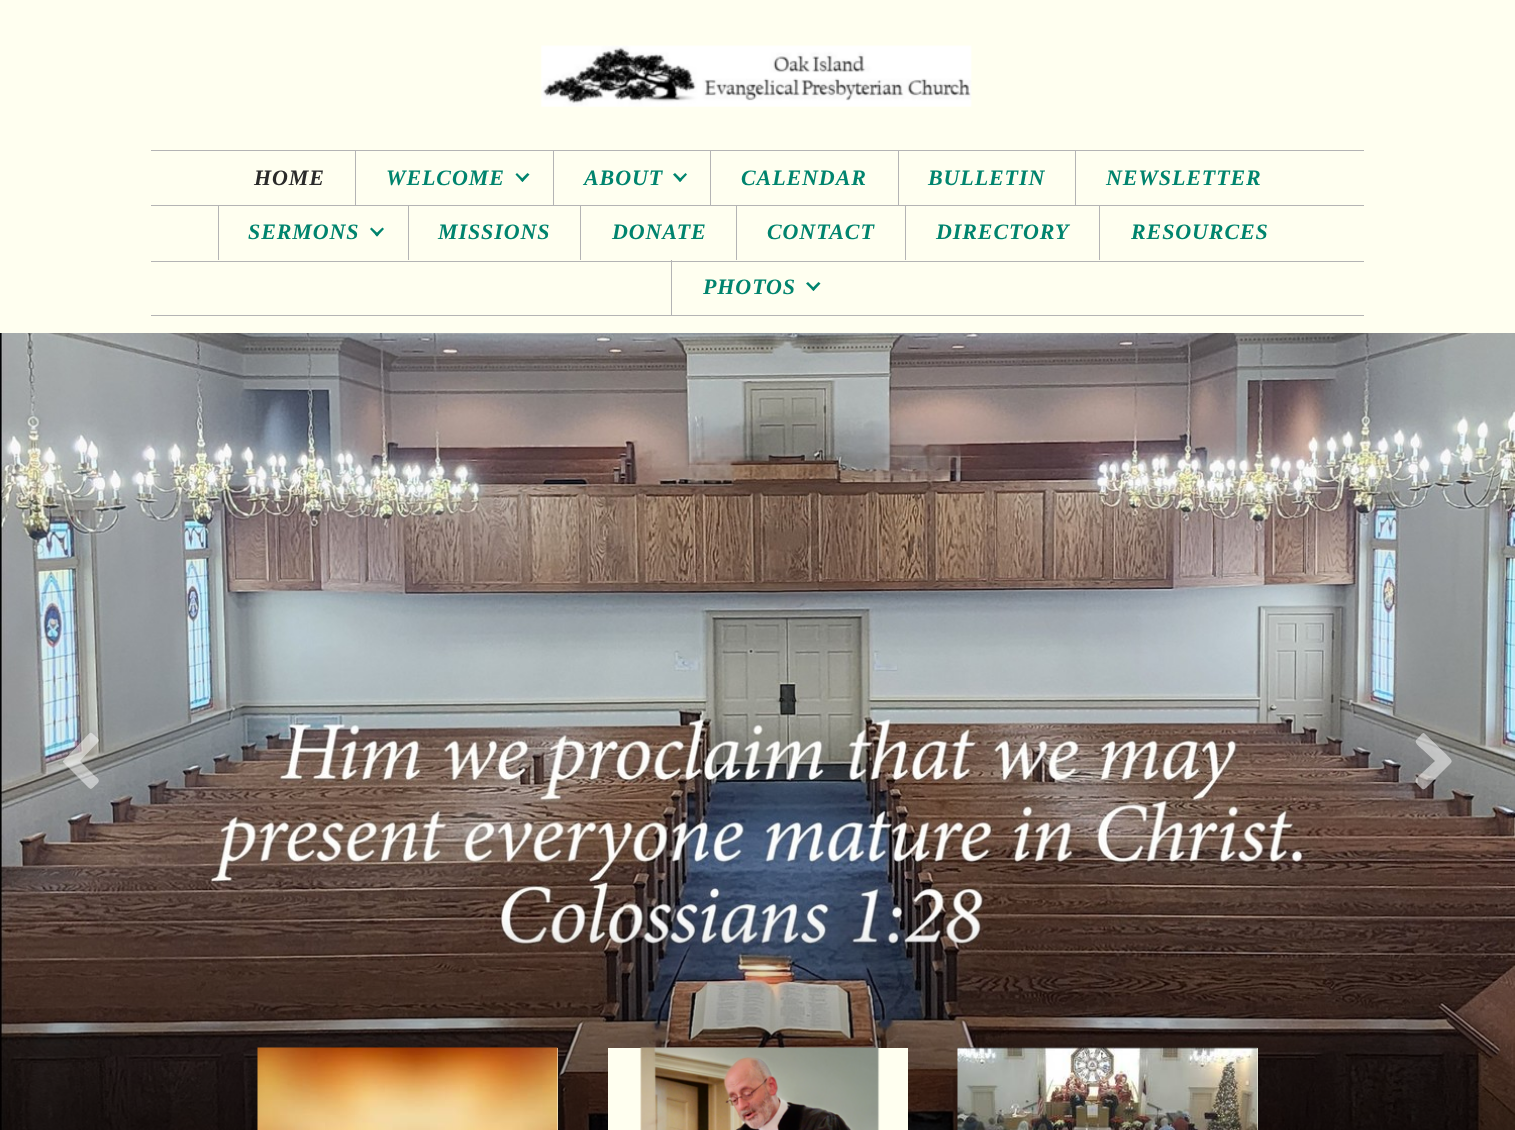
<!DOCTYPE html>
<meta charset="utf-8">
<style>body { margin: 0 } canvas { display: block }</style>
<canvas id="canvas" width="1515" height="1130"></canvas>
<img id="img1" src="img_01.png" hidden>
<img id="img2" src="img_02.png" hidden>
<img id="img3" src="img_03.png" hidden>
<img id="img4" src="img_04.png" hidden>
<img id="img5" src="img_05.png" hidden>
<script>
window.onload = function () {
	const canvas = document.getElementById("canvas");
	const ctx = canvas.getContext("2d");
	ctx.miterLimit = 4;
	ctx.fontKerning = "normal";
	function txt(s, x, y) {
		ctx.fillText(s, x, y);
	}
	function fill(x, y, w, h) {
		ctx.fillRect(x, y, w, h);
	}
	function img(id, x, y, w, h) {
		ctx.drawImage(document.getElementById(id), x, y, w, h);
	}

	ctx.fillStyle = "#FFFFFF";
	fill(0, 0, 1515, 1130);
	ctx.fillStyle = "#FFFFF0";
	fill(0, 0, 1515, 333);
	img("img1", 541, 45, 431, 62);
	ctx.fillStyle = "#B4B4B4";
	fill(151, 150, 1213, 1);
	fill(151, 315, 1213, 1);
	fill(151, 205, 1213, 1);
	fill(355, 151, 1, 55);
	ctx.fillStyle = "#00846E";
	ctx.beginPath();
	ctx.moveTo(527.5, 173);
	ctx.lineTo(529.5, 174.5);
	ctx.lineTo(522.5, 182);
	ctx.lineTo(520.5, 180);
	ctx.closePath();
	ctx.fill();
	ctx.beginPath();
	ctx.moveTo(517, 173);
	ctx.lineTo(524, 180);
	ctx.lineTo(522.5, 182);
	ctx.lineTo(515.5, 174.5);
	ctx.closePath();
	ctx.fill();
	ctx.fillStyle = "#B4B4B4";
	fill(553, 151, 1, 55);
	ctx.fillStyle = "#00846E";
	ctx.beginPath();
	ctx.moveTo(685.5, 173);
	ctx.lineTo(687, 174.5);
	ctx.lineTo(680, 182);
	ctx.lineTo(678.5, 180);
	ctx.closePath();
	ctx.fill();
	ctx.beginPath();
	ctx.moveTo(675, 173);
	ctx.lineTo(682, 180);
	ctx.lineTo(680, 182);
	ctx.lineTo(673, 174.5);
	ctx.closePath();
	ctx.fill();
	ctx.fillStyle = "#B4B4B4";
	fill(710, 151, 1, 55);
	fill(898, 151, 1, 55);
	fill(1075, 151, 1, 55);
	fill(218, 206, 1, 54);
	ctx.fillStyle = "#00846E";
	ctx.beginPath();
	ctx.moveTo(382.5, 227.5);
	ctx.lineTo(384, 229);
	ctx.lineTo(377, 236.5);
	ctx.lineTo(375, 234.5);
	ctx.closePath();
	ctx.fill();
	ctx.beginPath();
	ctx.moveTo(371.5, 227.5);
	ctx.lineTo(379, 234.5);
	ctx.lineTo(377, 236.5);
	ctx.lineTo(370, 229);
	ctx.closePath();
	ctx.fill();
	ctx.fillStyle = "#B4B4B4";
	fill(408, 206, 1, 54);
	fill(580, 206, 1, 54);
	fill(736, 206, 1, 54);
	fill(905, 206, 1, 54);
	fill(1099, 206, 1, 54);
	fill(151, 261, 1213, 1);
	fill(671, 260, 1, 55);
	ctx.fillStyle = "#00846E";
	ctx.beginPath();
	ctx.moveTo(818.5, 282);
	ctx.lineTo(820.5, 283.5);
	ctx.lineTo(813.5, 291);
	ctx.lineTo(811.5, 289);
	ctx.closePath();
	ctx.fill();
	ctx.beginPath();
	ctx.moveTo(808, 282);
	ctx.lineTo(815, 289);
	ctx.lineTo(813.5, 291);
	ctx.lineTo(806, 283.5);
	ctx.closePath();
	ctx.fill();
	img("img2", 0, 333, 1515, 797);
	ctx.fillStyle = "rgba(255, 255, 255, 0.5)";
	ctx.beginPath();
	ctx.moveTo(98, 742);
	ctx.lineTo(80, 761);
	ctx.lineTo(92, 773);
	ctx.bezierCurveTo(96, 778, 102, 779, 97, 784);
	ctx.bezierCurveTo(90, 790, 92, 791, 85, 784);
	ctx.lineTo(63, 762);
	ctx.lineTo(63, 761);
	ctx.lineTo(85, 738);
	ctx.bezierCurveTo(91, 732, 90, 731, 95, 736);
	ctx.bezierCurveTo(96, 737, 101, 740, 98, 742);
	ctx.closePath();
	ctx.fill();
	ctx.beginPath();
	ctx.moveTo(1451, 763);
	ctx.lineTo(1430, 784);
	ctx.bezierCurveTo(1423, 791, 1424, 791, 1417, 784);
	ctx.bezierCurveTo(1413, 779, 1418, 777, 1422, 773);
	ctx.lineTo(1435, 761);
	ctx.lineTo(1422, 749);
	ctx.bezierCurveTo(1421, 748, 1414, 743, 1416, 740);
	ctx.lineTo(1420, 736);
	ctx.bezierCurveTo(1421, 735, 1423, 731, 1425, 734);
	ctx.lineTo(1447, 755);
	ctx.bezierCurveTo(1447, 756, 1454, 760, 1451, 763);
	ctx.closePath();
	ctx.fill();
	ctx.fillStyle = "#FFFFF0";
	fill(557, 1048, 1, 82);
	img("img3", 257, 1047, 301, 83);
	fill(608, 1048, 300, 82);
	img("img4", 640, 1047, 240, 83);
	fill(1257, 1048, 1, 82);
	img("img5", 957, 1047, 301, 83);
	ctx.letterSpacing = "0.9px";
	ctx.font = "italic bold 22px Liberation Serif";
	ctx.fillStyle = "#2A2A2A";
	txt("HOME", 254, 185);
	ctx.fillStyle = "#00846E";
	txt("WELCOME", 386, 185);
	txt("ABOUT", 584, 185);
	txt("CALENDAR", 741, 185);
	txt("BULLETIN", 928, 185);
	txt("NEWSLETTER", 1106, 185);
	txt("SERMONS", 248, 239);
	txt("MISSIONS", 438, 239);
	txt("DONATE", 612, 239);
	txt("CONTACT", 767, 239);
	txt("DIRECTORY", 936, 239);
	txt("RESOURCES", 1131, 239);
	txt("PHOTOS", 703, 294);
};
</script>
